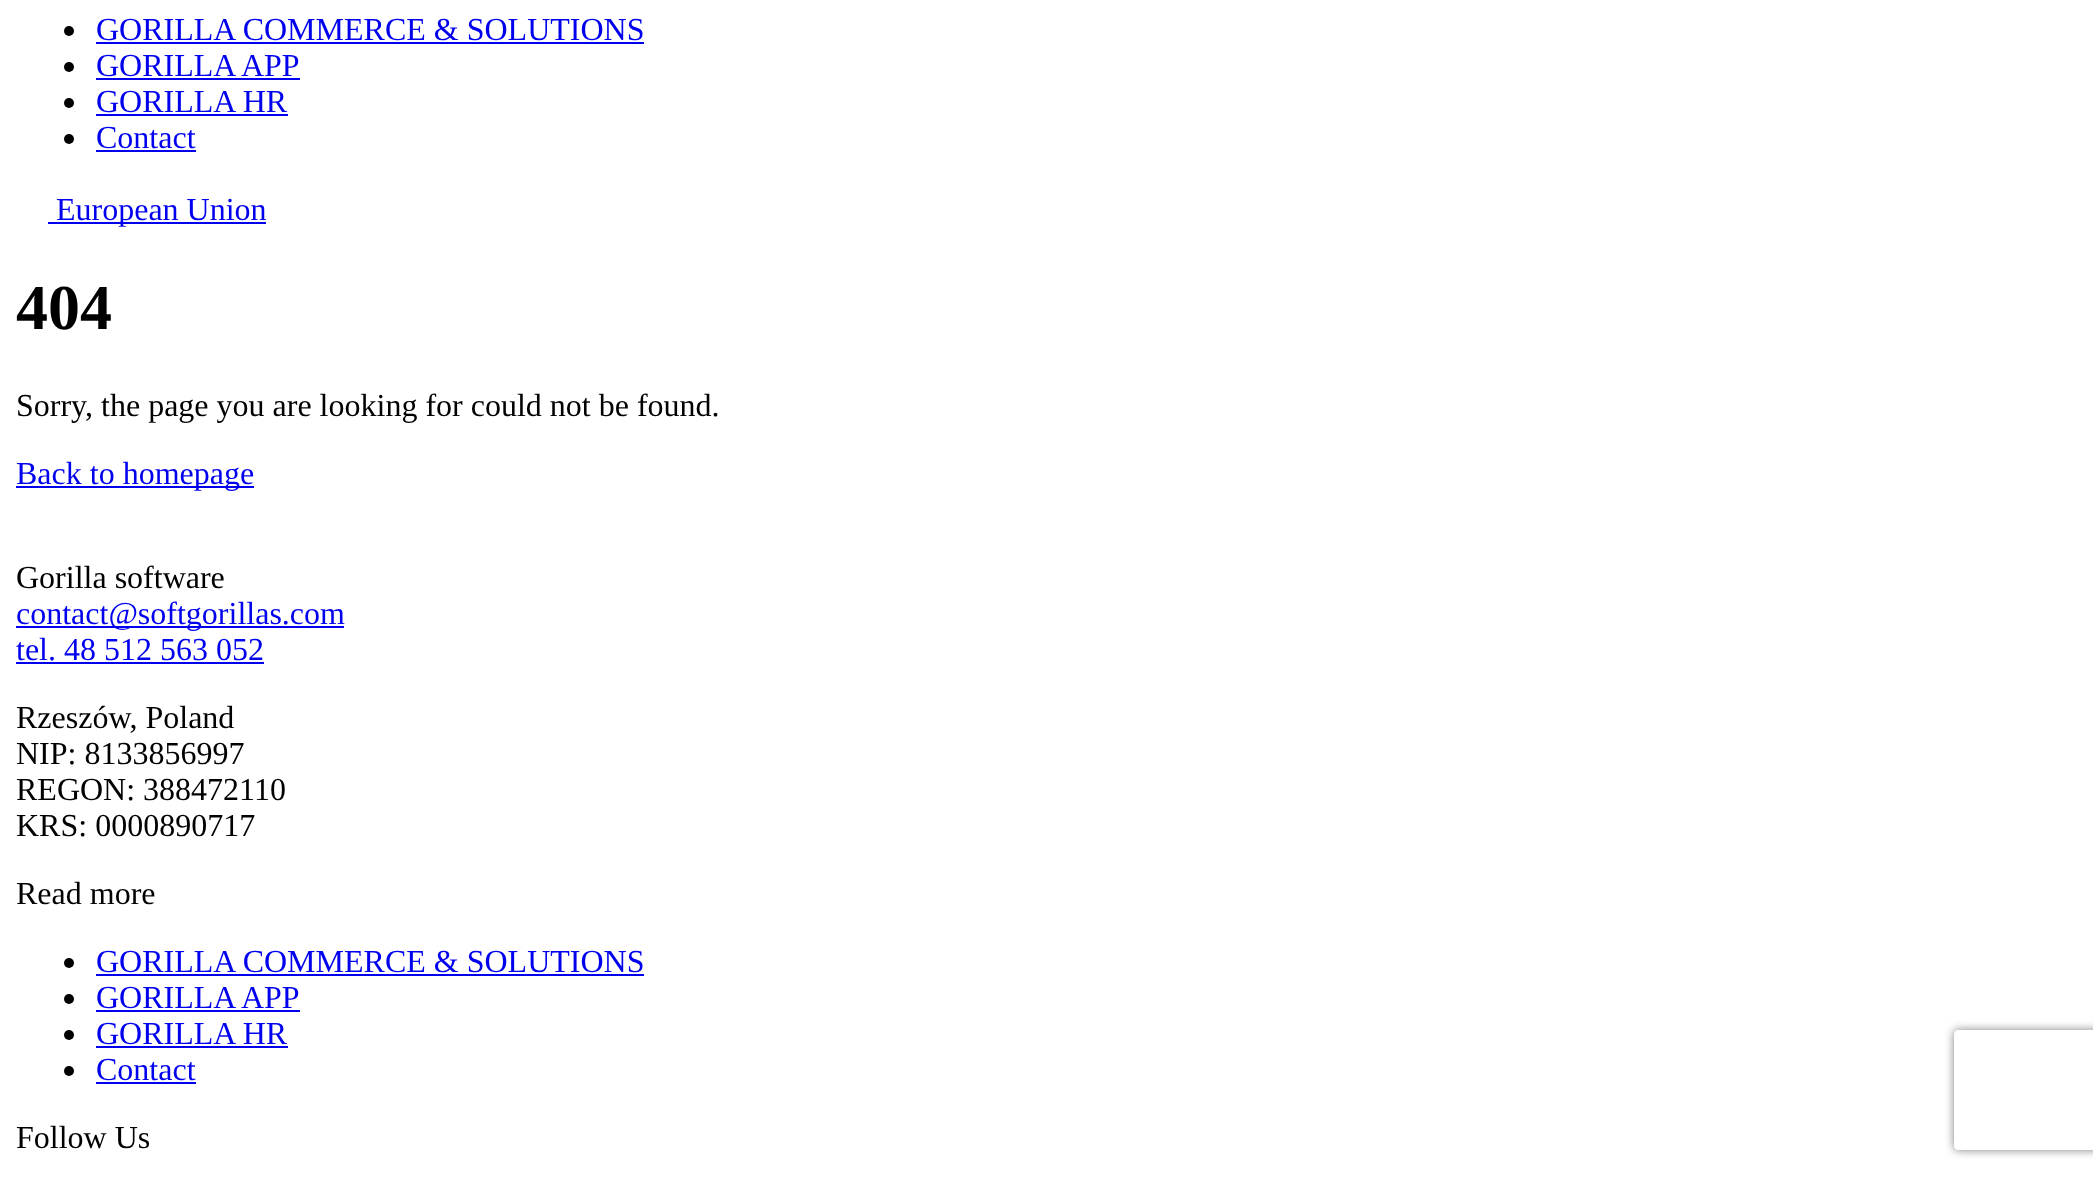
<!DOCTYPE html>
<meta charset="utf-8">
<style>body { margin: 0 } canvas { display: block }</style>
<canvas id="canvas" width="2093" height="1178"></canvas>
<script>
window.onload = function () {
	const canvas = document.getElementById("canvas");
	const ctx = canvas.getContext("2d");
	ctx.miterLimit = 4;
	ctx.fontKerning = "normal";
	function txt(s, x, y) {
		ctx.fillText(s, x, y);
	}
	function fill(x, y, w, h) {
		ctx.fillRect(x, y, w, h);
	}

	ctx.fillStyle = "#FFFFFF";
	fill(0, 0, 2093, 1178);
	ctx.fillStyle = "#000000";
	ctx.beginPath();
	ctx.arc(69, 31, 5, 0, Math.PI * 2);
	ctx.fill();
	ctx.fillStyle = "#0000EE";
	fill(96, 42, 548, 2);
	ctx.fillStyle = "#000000";
	ctx.beginPath();
	ctx.arc(69, 67, 5, 0, Math.PI * 2);
	ctx.fill();
	ctx.fillStyle = "#0000EE";
	fill(96, 78, 204, 2);
	ctx.fillStyle = "#000000";
	ctx.beginPath();
	ctx.arc(69, 103, 5, 0, Math.PI * 2);
	ctx.fill();
	ctx.fillStyle = "#0000EE";
	fill(96, 114, 192, 2);
	ctx.fillStyle = "#000000";
	ctx.beginPath();
	ctx.arc(69, 139, 5, 0, Math.PI * 2);
	ctx.fill();
	ctx.fillStyle = "#0000EE";
	fill(96, 150, 100, 2);
	fill(48, 222, 218, 2);
	fill(16, 486, 238, 2);
	fill(16, 626, 328, 2);
	fill(16, 662, 248, 2);
	ctx.fillStyle = "#000000";
	ctx.beginPath();
	ctx.arc(69, 963, 5, 0, Math.PI * 2);
	ctx.fill();
	ctx.fillStyle = "#0000EE";
	fill(96, 974, 548, 2);
	ctx.fillStyle = "#000000";
	ctx.beginPath();
	ctx.arc(69, 999, 5, 0, Math.PI * 2);
	ctx.fill();
	ctx.fillStyle = "#0000EE";
	fill(96, 1010, 204, 2);
	ctx.fillStyle = "#000000";
	ctx.beginPath();
	ctx.arc(69, 1035, 5, 0, Math.PI * 2);
	ctx.fill();
	ctx.fillStyle = "#0000EE";
	fill(96, 1046, 192, 2);
	ctx.fillStyle = "#000000";
	ctx.beginPath();
	ctx.arc(69, 1071, 5, 0, Math.PI * 2);
	ctx.fill();
	ctx.fillStyle = "#0000EE";
	fill(96, 1082, 100, 2);
	ctx.save();
	ctx.beginPath();
	ctx.moveTo(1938, 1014);
	ctx.lineTo(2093, 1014);
	ctx.lineTo(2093, 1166);
	ctx.lineTo(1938, 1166);
	ctx.closePath();
	ctx.moveTo(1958, 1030);
	ctx.lineTo(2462, 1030);
	ctx.bezierCurveTo(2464, 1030, 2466, 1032, 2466, 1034);
	ctx.lineTo(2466, 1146);
	ctx.bezierCurveTo(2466, 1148, 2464, 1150, 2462, 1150);
	ctx.lineTo(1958, 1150);
	ctx.bezierCurveTo(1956, 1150, 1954, 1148, 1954, 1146);
	ctx.lineTo(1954, 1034);
	ctx.bezierCurveTo(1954, 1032, 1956, 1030, 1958, 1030);
	ctx.closePath();
	ctx.clip("evenodd");
	ctx.fillStyle = "#808080";
	ctx.filter = "blur(5px)";
	ctx.beginPath();
	ctx.roundRect(1954, 1030, 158, 120, 4);
	ctx.fill();
	ctx.filter = "none";
	ctx.restore();
	ctx.font = "32px Liberation Serif";
	txt("GORILLA COMMERCE & SOLUTIONS", 96, 40);
	txt("GORILLA APP", 96, 76);
	txt("GORILLA HR", 96, 112);
	txt("Contact", 96, 148);
	txt("European Union", 56, 220);
	ctx.font = "bold 64px Liberation Serif";
	ctx.fillStyle = "#000000";
	txt("404", 16, 329);
	ctx.font = "32px Liberation Serif";
	txt("Sorry, the page you are looking for could not be found.", 16, 416);
	ctx.fillStyle = "#0000EE";
	txt("Back to homepage", 16, 484);
	ctx.fillStyle = "#000000";
	txt("Gorilla software", 16, 588);
	ctx.fillStyle = "#0000EE";
	txt("contact@softgorillas.com", 16, 624);
	txt("tel. 48 512 563 052", 16, 660);
	ctx.fillStyle = "#000000";
	txt("Rzeszów, Poland", 16, 728);
	txt("NIP: 8133856997", 16, 764);
	txt("REGON: 388472110", 16, 800);
	txt("KRS: 0000890717", 16, 836);
	txt("Read more", 16, 904);
	ctx.fillStyle = "#0000EE";
	txt("GORILLA COMMERCE & SOLUTIONS", 96, 972);
	txt("GORILLA APP", 96, 1008);
	txt("GORILLA HR", 96, 1044);
	txt("Contact", 96, 1080);
	ctx.fillStyle = "#000000";
	txt("Follow Us", 16, 1148);
};
</script>
